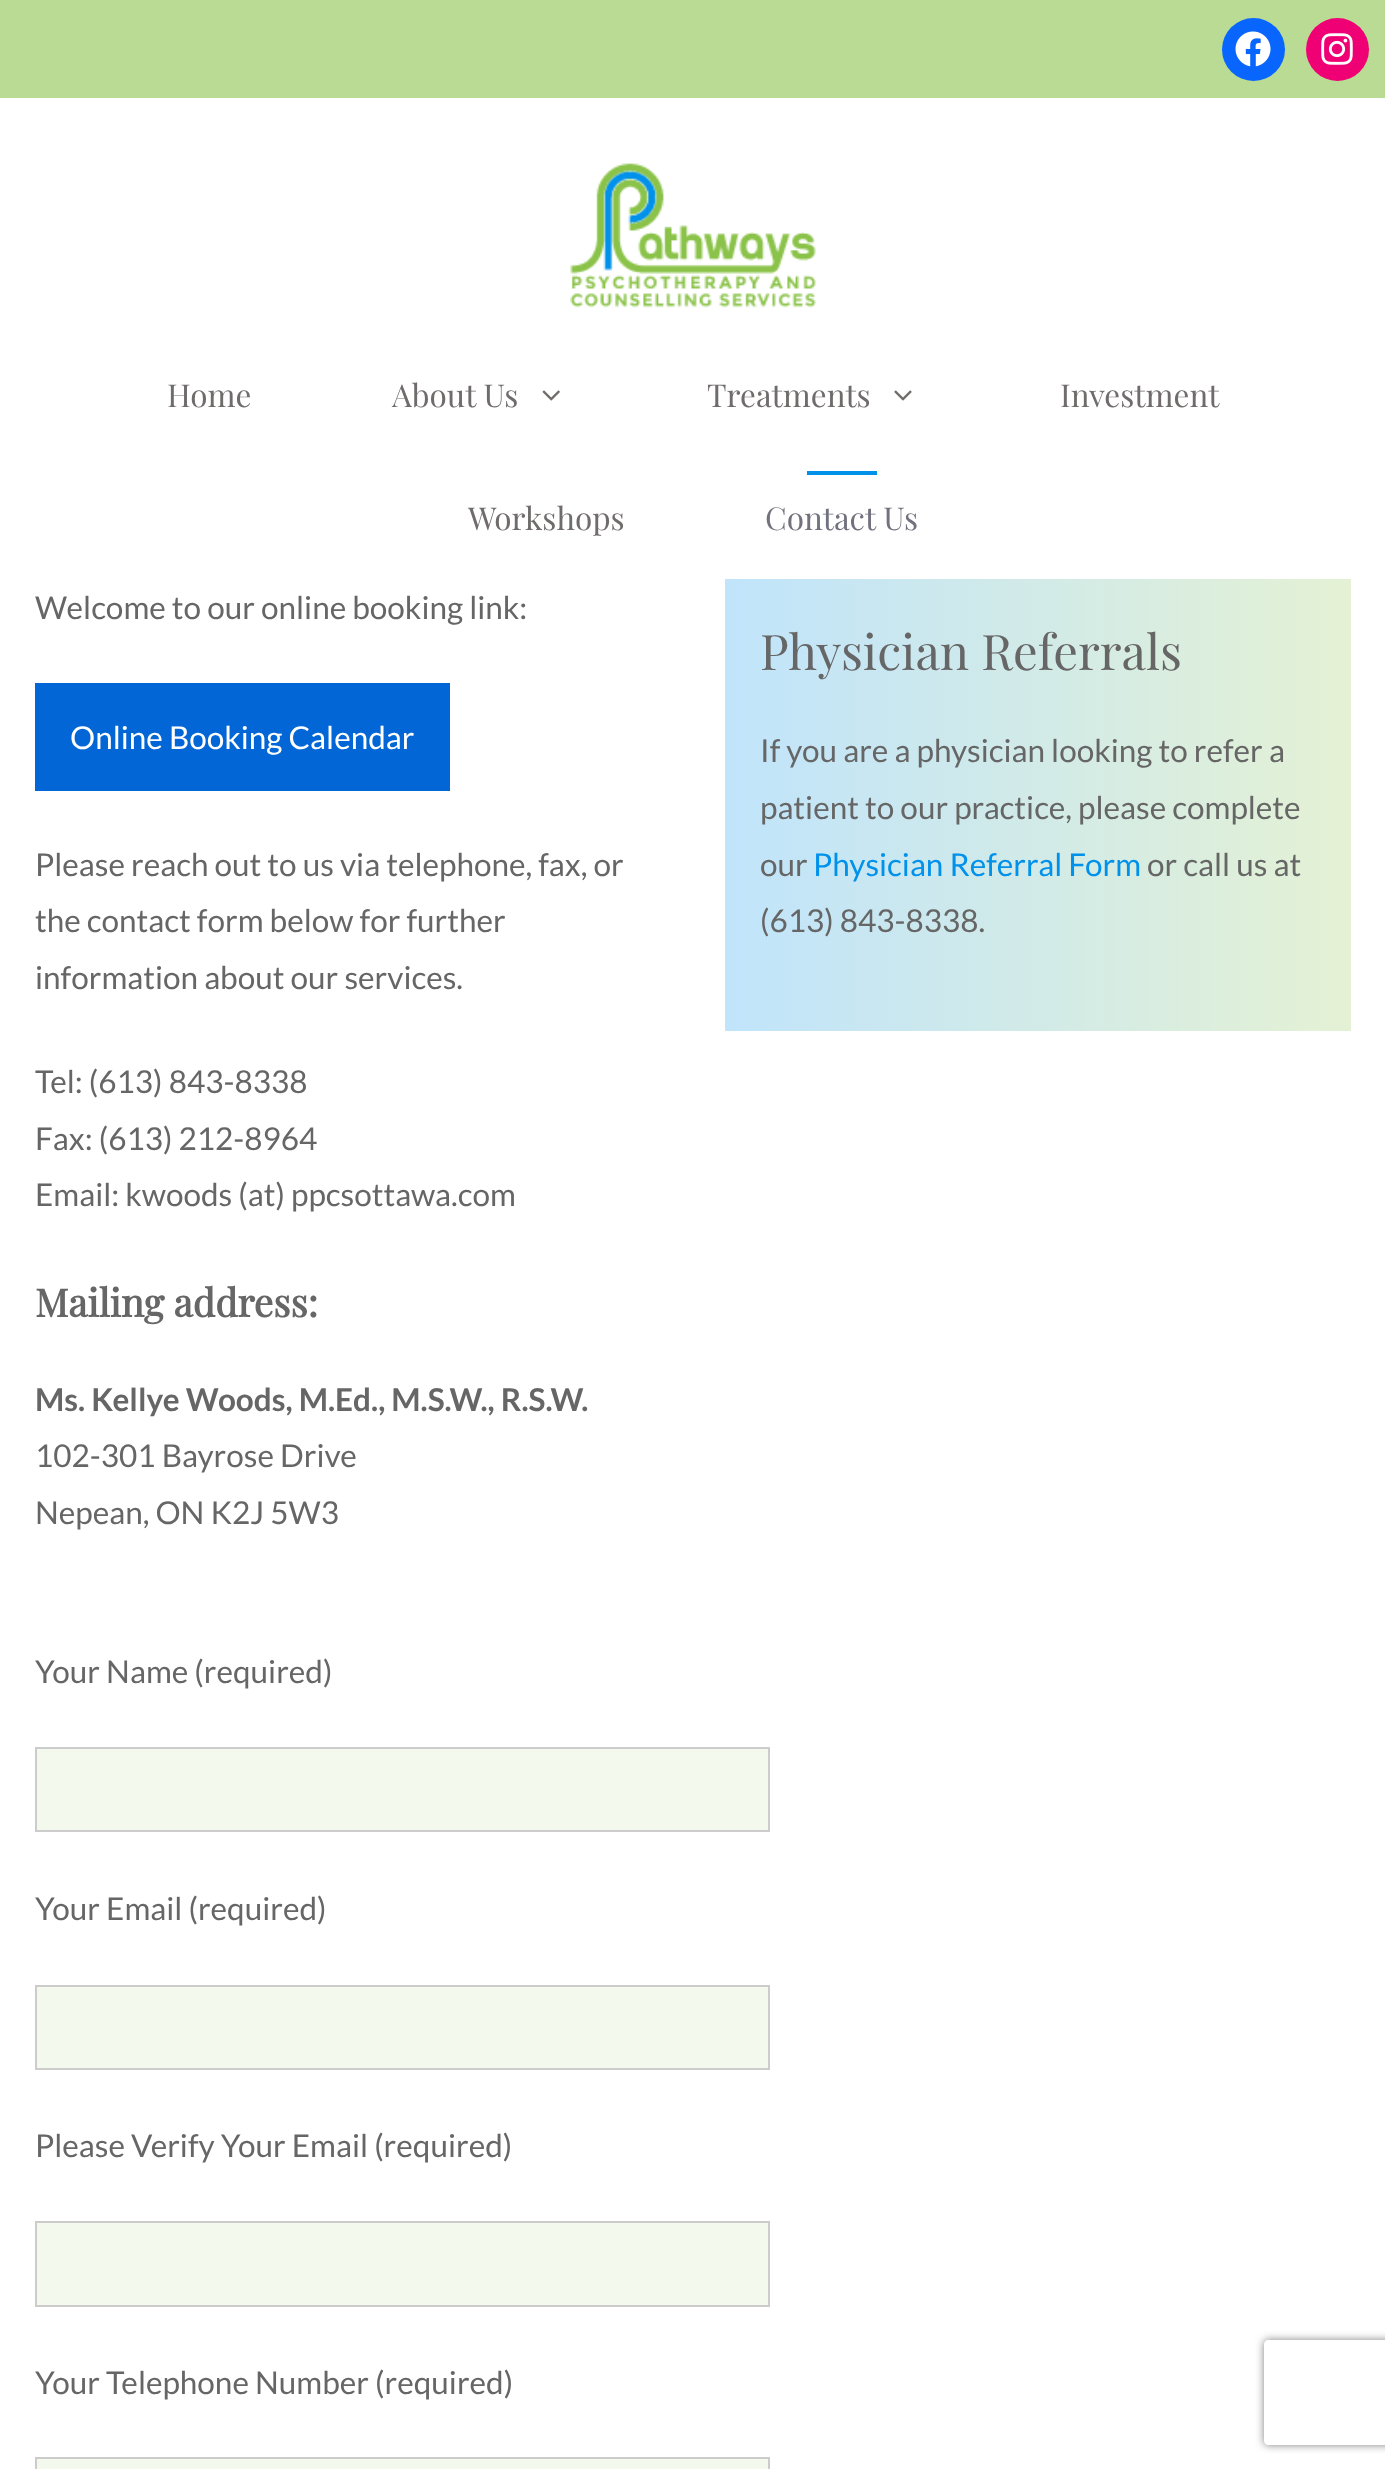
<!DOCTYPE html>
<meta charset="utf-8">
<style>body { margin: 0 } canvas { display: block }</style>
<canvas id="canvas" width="1385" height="2469"></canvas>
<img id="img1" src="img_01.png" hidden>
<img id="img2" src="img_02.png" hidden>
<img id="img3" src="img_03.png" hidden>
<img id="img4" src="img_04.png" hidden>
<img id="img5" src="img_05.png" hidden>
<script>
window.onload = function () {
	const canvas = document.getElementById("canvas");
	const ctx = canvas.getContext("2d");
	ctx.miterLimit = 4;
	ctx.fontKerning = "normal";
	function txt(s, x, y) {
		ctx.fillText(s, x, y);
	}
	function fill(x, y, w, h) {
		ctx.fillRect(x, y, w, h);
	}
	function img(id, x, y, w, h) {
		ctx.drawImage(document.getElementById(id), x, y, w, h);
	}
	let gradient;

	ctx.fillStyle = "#FFFFFF";
	fill(0, 0, 1385, 2469);
	ctx.fillStyle = "#B9DB93";
	fill(0, 0, 1385, 98);
	ctx.fillStyle = "#0866FF";
	ctx.beginPath();
	ctx.arc(1253.5, 49.5, 31.5, 0, Math.PI * 2);
	ctx.fill();
	img("img1", 1235, 31, 36, 36);
	ctx.fillStyle = "#F00075";
	ctx.beginPath();
	ctx.arc(1337.5, 49.5, 31.5, 0, Math.PI * 2);
	ctx.fill();
	img("img2", 1321, 33, 32, 32);
	img("img3", 570, 163, 246, 145);
	img("img4", 542, 390, 18, 11);
	img("img5", 894, 390, 18, 11);
	ctx.fillStyle = "#0091EA";
	fill(807, 471, 70, 4);
	ctx.fillStyle = "#0366D6";
	fill(35, 683, 415, 108);
	gradient = ctx.createLinearGradient(725, 805, 1351, 805);
	gradient.addColorStop(0, "#C0E4FB");
	gradient.addColorStop(1, "#E4F1D4");
	ctx.fillStyle = gradient;
	fill(725, 579, 626, 452);
	ctx.fillStyle = "#F3F9ED";
	ctx.beginPath();
	ctx.rect(36, 1748, 733, 83);
	ctx.fill();
	ctx.strokeStyle = "#CCCCCC";
	ctx.lineWidth = 2;
	ctx.stroke();
	ctx.beginPath();
	ctx.rect(36, 1986, 733, 83);
	ctx.fill();
	ctx.stroke();
	ctx.beginPath();
	ctx.rect(36, 2222, 733, 84);
	ctx.fill();
	ctx.stroke();
	ctx.beginPath();
	ctx.rect(36, 2458, 733, 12);
	ctx.fill();
	ctx.stroke();
	ctx.save();
	ctx.beginPath();
	ctx.moveTo(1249, 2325);
	ctx.lineTo(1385, 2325);
	ctx.lineTo(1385, 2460);
	ctx.lineTo(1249, 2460);
	ctx.closePath();
	ctx.moveTo(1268, 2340);
	ctx.lineTo(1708, 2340);
	ctx.bezierCurveTo(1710, 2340, 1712, 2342, 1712, 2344);
	ctx.lineTo(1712, 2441);
	ctx.bezierCurveTo(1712, 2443, 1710, 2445, 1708, 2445);
	ctx.lineTo(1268, 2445);
	ctx.bezierCurveTo(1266, 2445, 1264, 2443, 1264, 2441);
	ctx.lineTo(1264, 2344);
	ctx.bezierCurveTo(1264, 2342, 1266, 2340, 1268, 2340);
	ctx.closePath();
	ctx.clip("evenodd");
	ctx.fillStyle = "#808080";
	ctx.filter = "blur(4.5px)";
	ctx.beginPath();
	ctx.roundRect(1264, 2340, 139, 105, 4);
	ctx.fill();
	ctx.filter = "none";
	ctx.restore();
	ctx.font = "31.5px Playfair Display";
	ctx.fillStyle = "#706C6C";
	txt("Home", 167, 407);
	txt("About Us", 392, 407);
	txt("Treatments", 707, 407);
	txt("Investment", 1060, 407);
	txt("Workshops", 468, 530);
	ctx.fillStyle = "#72727F";
	txt("Contact Us", 765, 530);
	ctx.font = "31.5px Lato";
	ctx.fillStyle = "#666666";
	txt("Welcome to our online booking link:", 35, 619);
	ctx.fillStyle = "#FFFFFF";
	txt("Online Booking Calendar", 70, 749);
	ctx.fillStyle = "#666666";
	txt("Please reach out to us via telephone, fax, or", 35, 876);
	txt("the contact form below for further", 35, 932);
	txt("information about our services.", 35, 989);
	txt("Tel: (613) 843-8338", 35, 1093);
	txt("Fax: (613) 212-8964", 35, 1150);
	txt("Email: kwoods (at) ppcsottawa.com", 35, 1206);
	ctx.font = "bold 38.5px Playfair Display";
	txt("Mailing address:", 35, 1317);
	ctx.font = "bold 31.5px Lato";
	txt("Ms. Kellye Woods, M.Ed., M.S.W., R.S.W.", 35, 1411);
	ctx.font = "31.5px Lato";
	txt("102-301 Bayrose Drive", 35, 1467);
	txt("Nepean, ON K2J 5W3", 35, 1524);
	ctx.font = "49px Playfair Display";
	txt("Physician Referrals", 760, 670);
	ctx.font = "31.5px Lato";
	txt("If you are a physician looking to refer a", 760, 762);
	txt("patient to our practice, please complete", 760, 819);
	txt("our", 760, 876);
	ctx.fillStyle = "#0091EA";
	txt("Physician Referral Form", 813, 876);
	ctx.fillStyle = "#666666";
	txt("or call us at", 1147, 876);
	txt("(613) 843-8338.", 760, 932);
	txt("Your Name (required)", 35, 1683);
	txt("Your Email (required)", 35, 1920);
	txt("Please Verify Your Email (required)", 35, 2157);
	txt("Your Telephone Number (required)", 35, 2394);
};
</script>
